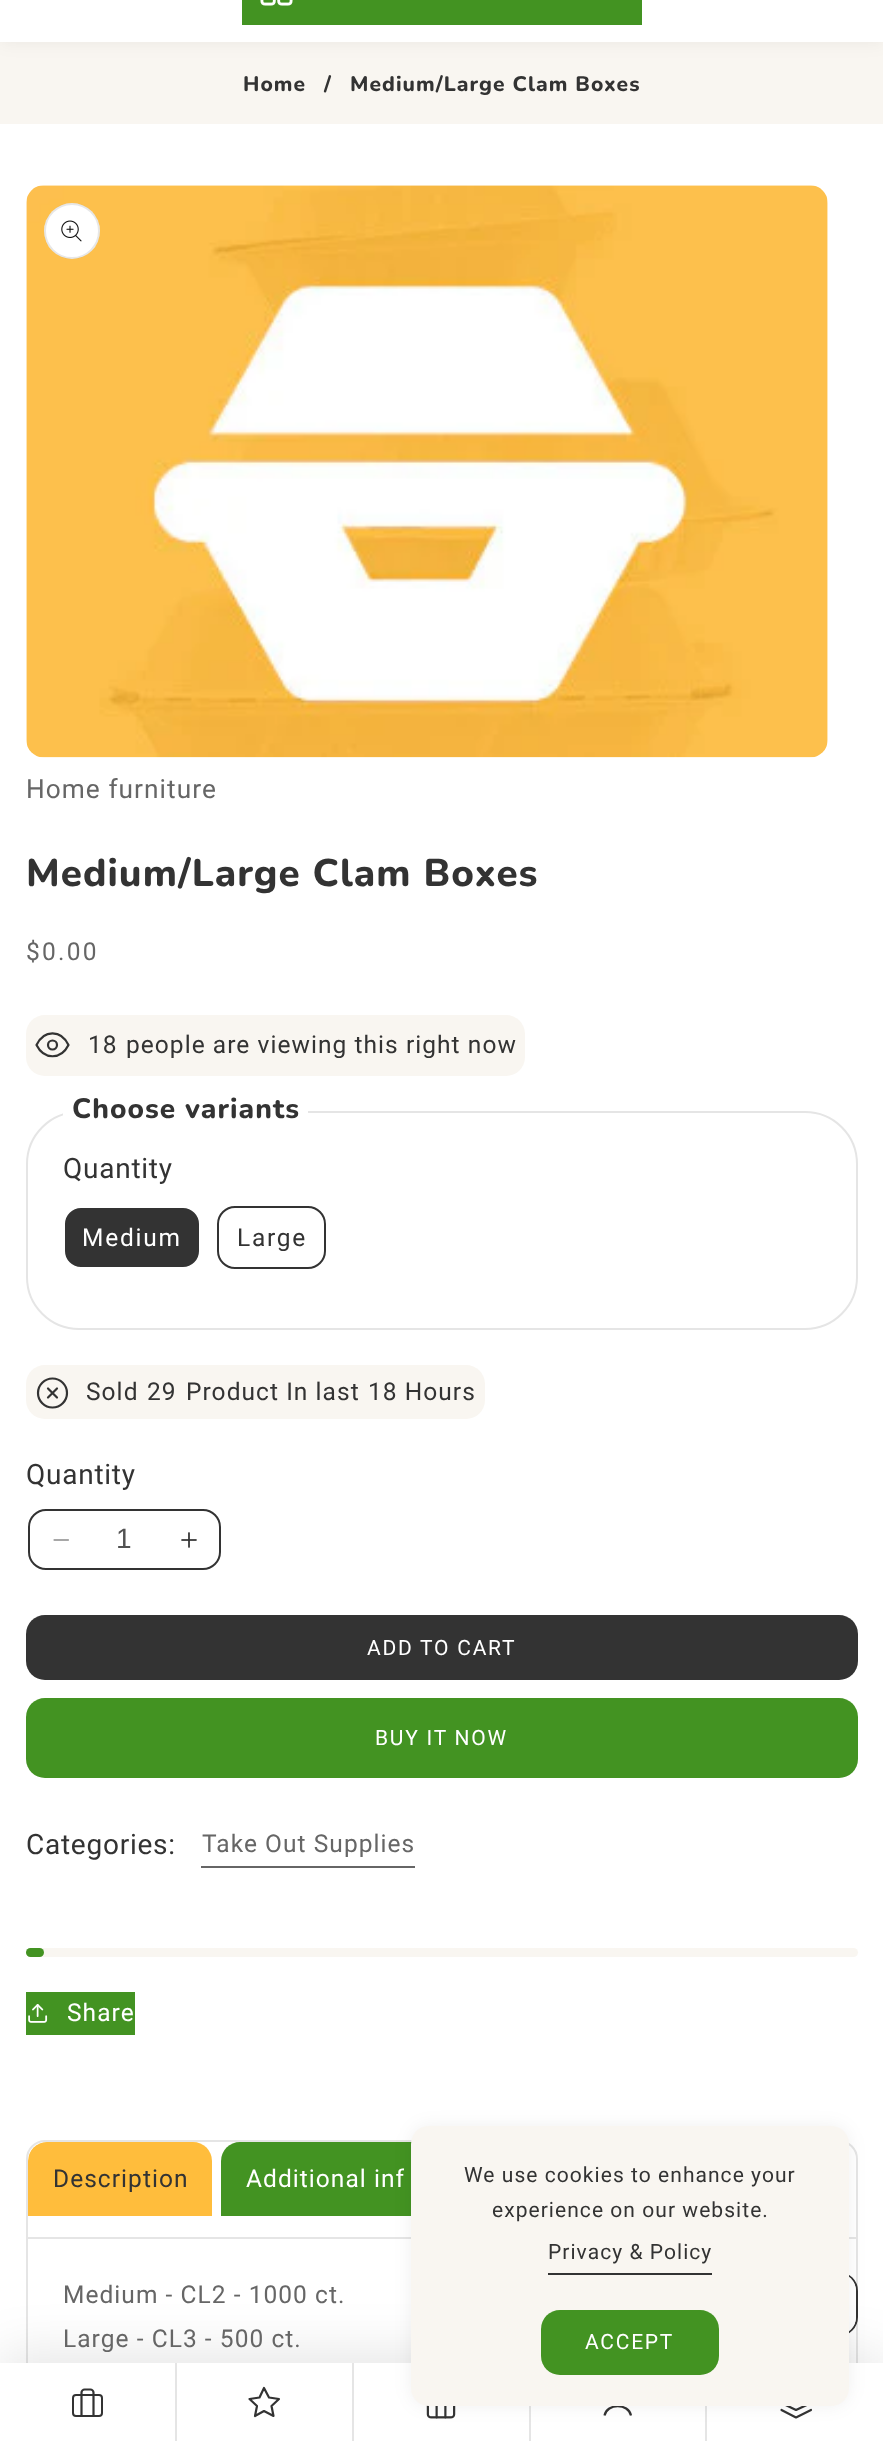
<!DOCTYPE html>
<meta charset="utf-8">
<style>body { margin: 0 } canvas { display: block }</style>
<canvas id="canvas" width="883" height="2441"></canvas>
<img id="img1" src="img_01.png" hidden>
<img id="img2" src="img_02.png" hidden>
<img id="img3" src="img_03.png" hidden>
<img id="img4" src="img_04.png" hidden>
<img id="img5" src="img_05.png" hidden>
<img id="img6" src="img_06.png" hidden>
<img id="img7" src="img_07.png" hidden>
<script>
window.onload = function () {
	const canvas = document.getElementById("canvas");
	const ctx = canvas.getContext("2d");
	ctx.miterLimit = 4;
	ctx.fontKerning = "normal";
	function txt(s, x, y) {
		ctx.fillText(s, x, y);
	}
	function fill(x, y, w, h) {
		ctx.fillRect(x, y, w, h);
	}
	function round(x, y, w, h, r) {
		ctx.beginPath();
		ctx.roundRect(x, y, w, h, r);
		ctx.fill();
	}
	function img(id, x, y, w, h) {
		ctx.drawImage(document.getElementById(id), x, y, w, h);
	}

	ctx.fillStyle = "#FFFFFF";
	fill(0, 0, 883, 2441);
	ctx.fillStyle = "#F9F6F1";
	fill(0, 42, 883, 82);
	ctx.fillStyle = "rgba(0, 0, 0, 0.06)";
	ctx.filter = "blur(9px)";
	ctx.beginPath();
	ctx.rect(0, -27, 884, 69);
	ctx.fill();
	ctx.filter = "none";
	ctx.fillStyle = "#FFFFFF";
	fill(0, 0, 883, 42);
	ctx.fillStyle = "#439322";
	fill(242, 0, 400, 25);
	img("img1", 260, 0, 33, 6);
	img("img2", 26, 185, 802, 573);
	ctx.fillStyle = "#FFFFFF";
	ctx.beginPath();
	ctx.arc(72, 231, 28, 0, Math.PI * 2);
	ctx.fill();
	ctx.beginPath();
	ctx.arc(72, 231, 27, 0, Math.PI * 2);
	ctx.strokeStyle = "rgba(18, 18, 18, 0.1)";
	ctx.lineWidth = 2;
	ctx.stroke();
	img("img3", 61, 220, 21, 22);
	ctx.fillStyle = "#F9F6F1";
	round(26, 1015, 499, 61, 19);
	ctx.beginPath();
	ctx.moveTo(36.5, 1045);
	ctx.bezierCurveTo(44, 1029.5, 61, 1029.5, 68.5, 1045);
	ctx.bezierCurveTo(61, 1060, 44, 1060, 36.5, 1045);
	ctx.closePath();
	ctx.strokeStyle = "#333333";
	ctx.lineWidth = 2.2;
	ctx.lineCap = "round";
	ctx.lineJoin = "round";
	ctx.stroke();
	ctx.beginPath();
	ctx.arc(52.5, 1045, 4.5, 0, Math.PI * 2);
	ctx.stroke();
	ctx.beginPath();
	ctx.roundRect(27, 1112, 830, 217, 52);
	ctx.strokeStyle = "#E5E5E5";
	ctx.lineWidth = 2;
	ctx.lineJoin = "miter";
	ctx.stroke();
	ctx.fillStyle = "#FFFFFF";
	fill(63, 1111, 245, 5);
	ctx.fillStyle = "#333333";
	ctx.beginPath();
	ctx.roundRect(64, 1207, 136, 61, 17);
	ctx.fill();
	ctx.strokeStyle = "#FFFFFF";
	ctx.stroke();
	ctx.beginPath();
	ctx.roundRect(218, 1207, 107, 61, 17);
	ctx.strokeStyle = "#333333";
	ctx.stroke();
	ctx.fillStyle = "#F9F6F1";
	round(26, 1365, 459, 54, 19);
	ctx.beginPath();
	ctx.arc(52.5, 1393, 14.5, 0, Math.PI * 2);
	ctx.lineWidth = 2.2;
	ctx.stroke();
	ctx.beginPath();
	ctx.moveTo(57, 1388.5);
	ctx.lineTo(48, 1397.5);
	ctx.moveTo(48, 1388.5);
	ctx.lineTo(57, 1397.5);
	ctx.lineJoin = "round";
	ctx.stroke();
	img("img4", 53, 1539, 16, 2);
	img("img5", 181, 1532, 16, 16);
	ctx.beginPath();
	ctx.roundRect(29, 1510, 191, 59, 17);
	ctx.lineWidth = 2;
	ctx.lineJoin = "miter";
	ctx.stroke();
	ctx.fillStyle = "#333333";
	round(26, 1615, 832, 65, 19);
	ctx.fillStyle = "#439322";
	round(26, 1698, 832, 80, 19);
	ctx.fillStyle = "#666666";
	fill(201, 1866, 214, 2);
	ctx.fillStyle = "#F9F6F1";
	round(26, 1948, 832, 9, 4.5);
	ctx.fillStyle = "#439322";
	round(26, 1948, 18, 9, 4.5);
	fill(26, 1992, 109, 43);
	img("img6", 28, 2004, 20, 19);
	ctx.beginPath();
	ctx.roundRect(27, 2141, 830, 256, 18);
	ctx.strokeStyle = "#E5E5E5";
	ctx.stroke();
	ctx.save();
	ctx.beginPath();
	ctx.roundRect(28, 2142, 828, 254, 18);
	ctx.clip();
	ctx.fillStyle = "#FFBD3C";
	ctx.beginPath();
	ctx.roundRect(28, 2142, 184, 74, [19, 19, 0, 0]);
	ctx.fill();
	ctx.restore();
	ctx.beginPath();
	ctx.roundRect(221, 2142, 316, 74, [19, 19, 0, 0]);
	ctx.fill();
	ctx.fillStyle = "#E5E5E5";
	fill(28, 2237, 828, 2);
	ctx.beginPath();
	ctx.roundRect(794, 2273, 63, 62, 18);
	ctx.strokeStyle = "#333333";
	ctx.stroke();
	ctx.fillStyle = "#FFFFFF";
	round(795, 2273, 61, 62, 18);
	ctx.fillStyle = "rgba(0, 0, 0, 0.1)";
	ctx.filter = "blur(26px)";
	ctx.beginPath();
	ctx.rect(0, 2354, 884, 79);
	ctx.fill();
	ctx.filter = "none";
	ctx.fillStyle = "#FFFFFF";
	fill(0, 2363, 883, 78);
	ctx.fillStyle = "#E5E5E5";
	fill(529, 2406, 2, 35);
	img("img7", 426, 2405, 30, 14);
	fill(705, 2406, 2, 35);
	ctx.beginPath();
	ctx.moveTo(604.5, 2415.5);
	ctx.bezierCurveTo(607, 2403, 628.5, 2403, 631, 2415.5);
	ctx.lineWidth = 2.2;
	ctx.lineCap = "butt";
	ctx.stroke();
	ctx.beginPath();
	ctx.moveTo(781.5, 2410);
	ctx.lineTo(796, 2417.5);
	ctx.lineTo(811, 2410);
	ctx.moveTo(781.5, 2403);
	ctx.lineTo(796, 2410);
	ctx.lineTo(811, 2403);
	ctx.lineCap = "round";
	ctx.lineJoin = "round";
	ctx.stroke();
	ctx.fillStyle = "rgba(0, 0, 0, 0.06)";
	ctx.filter = "blur(9px)";
	ctx.beginPath();
	ctx.roundRect(411, 2126, 438, 280, 18);
	ctx.fill();
	ctx.filter = "none";
	ctx.fillStyle = "#F9F6F1";
	round(411, 2126, 438, 280, 18);
	ctx.fillStyle = "#333333";
	fill(548, 2273, 164, 2);
	ctx.fillStyle = "#439322";
	round(541, 2310, 178, 65, 19);
	ctx.fillStyle = "#E5E5E5";
	fill(175, 2363, 2, 78);
	ctx.beginPath();
	ctx.roundRect(73, 2395, 29, 21, 3);
	ctx.lineWidth = 2;
	ctx.lineJoin = "miter";
	ctx.stroke();
	ctx.beginPath();
	ctx.moveTo(93.5, 2416);
	ctx.lineTo(93.5, 2392.5);
	ctx.bezierCurveTo(93.5, 2391, 92, 2389.5, 90.5, 2389.5);
	ctx.lineTo(84.5, 2389.5);
	ctx.bezierCurveTo(83, 2389.5, 81.5, 2391, 81.5, 2392.5);
	ctx.lineTo(81.5, 2416);
	ctx.lineWidth = 2.2;
	ctx.lineJoin = "round";
	ctx.stroke();
	fill(352, 2363, 2, 78);
	ctx.beginPath();
	ctx.moveTo(264, 2388);
	ctx.lineTo(269, 2397.5);
	ctx.lineTo(279, 2399);
	ctx.lineTo(271.5, 2406);
	ctx.lineTo(273.5, 2416);
	ctx.lineTo(264, 2411);
	ctx.lineTo(255, 2416);
	ctx.lineTo(257, 2406);
	ctx.lineTo(249.5, 2399);
	ctx.lineTo(259.5, 2397.5);
	ctx.closePath();
	ctx.stroke();
	ctx.letterSpacing = "1.05px";
	ctx.font = "800 21px Nunito";
	ctx.fillStyle = "#333333";
	txt("Home", 243, 91);
	txt("/", 324, 91);
	txt("Medium/Large Clam Boxes", 350, 91);
	ctx.font = "26.25px Roboto";
	ctx.fillStyle = "#666666";
	txt("Home furniture", 26, 798);
	ctx.font = "800 38.5px Nunito";
	ctx.fillStyle = "#333333";
	txt("Medium/Large Clam Boxes", 26, 886);
	ctx.letterSpacing = "2.25px";
	ctx.font = "24.5px Roboto";
	ctx.fillStyle = "#666666";
	txt("$0.00", 26, 960);
	ctx.letterSpacing = "1.05px";
	ctx.fillStyle = "#333333";
	txt("18", 88, 1053);
	txt("people are viewing this right now", 126, 1053);
	ctx.font = "800 28px Nunito";
	txt("Choose variants", 72, 1118);
	ctx.letterSpacing = "0.75px";
	ctx.font = "28px Roboto";
	txt("Quantity", 63, 1178);
	ctx.letterSpacing = "1.75px";
	ctx.font = "24.5px Roboto";
	ctx.fillStyle = "#FFFFFF";
	txt("Medium", 82, 1246);
	ctx.fillStyle = "#333333";
	txt("Large", 237, 1246);
	ctx.letterSpacing = "1.05px";
	txt("Sold", 86, 1400);
	txt("29", 147, 1400);
	txt("Product In last", 186, 1400);
	txt("18 Hours", 368, 1400);
	ctx.letterSpacing = "0.75px";
	ctx.font = "28px Roboto";
	txt("Quantity", 26, 1484);
	ctx.letterSpacing = "0px";
	ctx.font = "28px Liberation Sans";
	ctx.fillStyle = "#525252";
	txt("1", 116, 1548);
	ctx.letterSpacing = "1.75px";
	ctx.font = "21px Roboto";
	ctx.fillStyle = "#FFFFFF";
	txt("ADD TO CART", 367, 1655);
	txt("BUY IT NOW", 375, 1745);
	ctx.letterSpacing = "0.75px";
	ctx.font = "28px Roboto";
	ctx.fillStyle = "#333333";
	txt("Categories:", 26, 1854);
	ctx.letterSpacing = "1.05px";
	ctx.font = "24.5px Roboto";
	ctx.fillStyle = "#666666";
	txt("Take Out Supplies", 202, 1852);
	ctx.fillStyle = "#FFFFFF";
	txt("Share", 67, 2021);
	ctx.fillStyle = "#333333";
	txt("Description", 53, 2187);
	ctx.fillStyle = "#FFFFFF";
	txt("Additional inf", 246, 2187);
	ctx.fillStyle = "#666666";
	txt("Medium - CL2 - 1000 ct.", 63, 2303);
	txt("Large - CL3 - 500 ct.", 63, 2347);
	ctx.font = "21px Roboto";
	ctx.fillStyle = "#333333";
	txt("We use cookies to enhance your", 464, 2182);
	txt("experience on our website.", 492, 2217);
	txt("Privacy & Policy", 548, 2259);
	ctx.letterSpacing = "1.75px";
	ctx.fillStyle = "#FFFFFF";
	txt("ACCEPT", 585, 2349);
};
</script>
